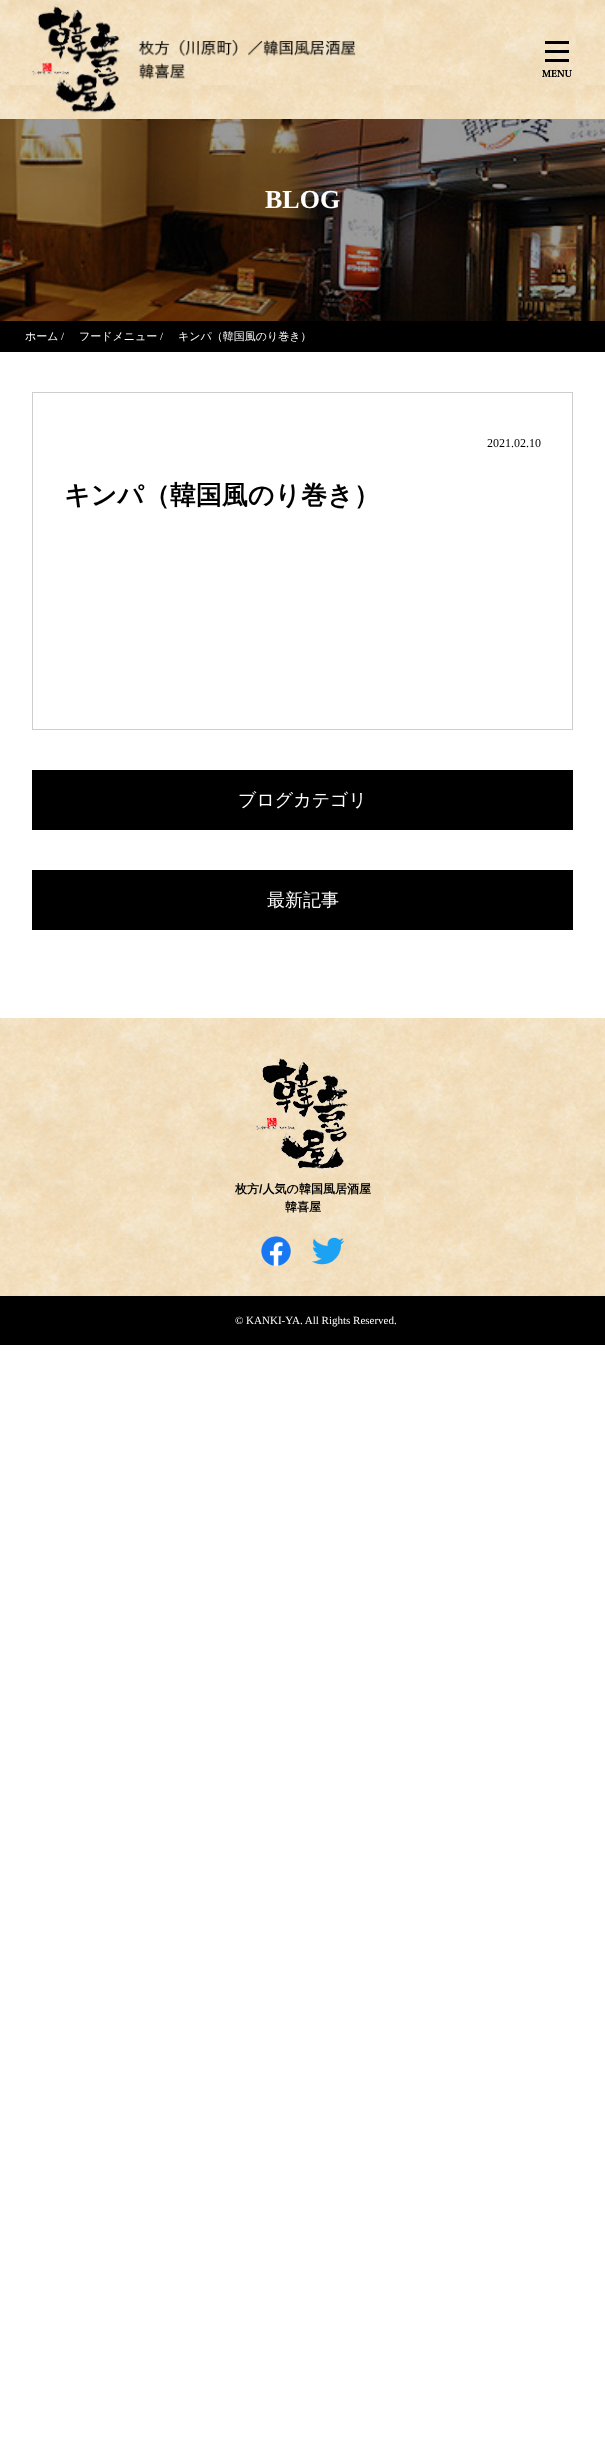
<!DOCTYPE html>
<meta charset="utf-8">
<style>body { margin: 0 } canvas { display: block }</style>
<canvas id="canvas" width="605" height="2453"></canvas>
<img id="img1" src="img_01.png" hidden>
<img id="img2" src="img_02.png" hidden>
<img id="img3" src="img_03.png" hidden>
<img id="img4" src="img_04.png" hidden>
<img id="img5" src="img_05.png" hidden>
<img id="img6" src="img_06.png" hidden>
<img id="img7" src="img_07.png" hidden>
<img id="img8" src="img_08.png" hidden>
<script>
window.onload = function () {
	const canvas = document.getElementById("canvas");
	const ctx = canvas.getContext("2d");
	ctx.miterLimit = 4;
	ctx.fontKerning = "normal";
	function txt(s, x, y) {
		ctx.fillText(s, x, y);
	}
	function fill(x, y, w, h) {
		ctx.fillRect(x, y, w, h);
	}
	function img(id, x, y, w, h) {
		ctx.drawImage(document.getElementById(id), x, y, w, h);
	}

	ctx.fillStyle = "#FFFFFF";
	fill(0, 0, 605, 2453);
	img("img1", 0, 0, 605, 119);
	img("img2", 32, 6, 324, 107);
	img("img3", 542, 41, 30, 36);
	img("img4", 0, 119, 605, 202);
	ctx.fillStyle = "#000000";
	fill(0, 321, 605, 31);
	ctx.strokeStyle = "#CECECE";
	ctx.strokeRect(32.5, 392.5, 540, 337);
	fill(32, 770, 541, 60);
	fill(32, 870, 541, 60);
	img("img5", 0, 1018, 605, 278);
	img("img6", 256, 1058, 92, 111);
	img("img7", 261, 1236, 30, 30);
	img("img8", 312, 1237, 33, 28);
	fill(0, 1296, 605, 49);
	ctx.font = "bold 26px Liberation Serif";
	ctx.fillStyle = "#FFFFFF";
	txt("BLOG", 265, 208);
	ctx.font = "500 11px WenQuanYi Zen Hei";
	txt("ホーム", 25, 340);
	ctx.font = "11px Liberation Serif";
	txt("/", 61, 340);
	ctx.font = "500 11px WenQuanYi Zen Hei";
	txt("フードメニュー", 79, 340);
	ctx.font = "11px Liberation Serif";
	txt("/", 160, 340);
	ctx.font = "500 11px WenQuanYi Zen Hei";
	txt("キンパ（韓国風のり巻き）", 178, 340);
	ctx.font = "12px Liberation Serif";
	ctx.fillStyle = "#000000";
	txt("2021.02.10", 487, 447);
	ctx.font = "bold 26px WenQuanYi Zen Hei";
	txt("キンパ（韓国風のり巻き）", 64, 504);
	ctx.font = "500 18px WenQuanYi Zen Hei";
	ctx.fillStyle = "#FFFFFF";
	txt("ブログカテゴリ", 238, 806);
	txt("最新記事", 267, 906);
	ctx.font = "bold 12px WenQuanYi Zen Hei";
	ctx.fillStyle = "#000000";
	txt("枚方 人気の韓国風居酒屋", 235, 1193);
	ctx.font = "bold 12px Liberation Sans";
	txt("/", 259, 1193);
	ctx.font = "bold 12px WenQuanYi Zen Hei";
	txt("韓喜屋", 285, 1211);
	ctx.font = "11px Liberation Serif";
	ctx.fillStyle = "#FFFFFF";
	txt("© KANKI-YA. All Rights Reserved.", 235, 1324);
};
</script>
